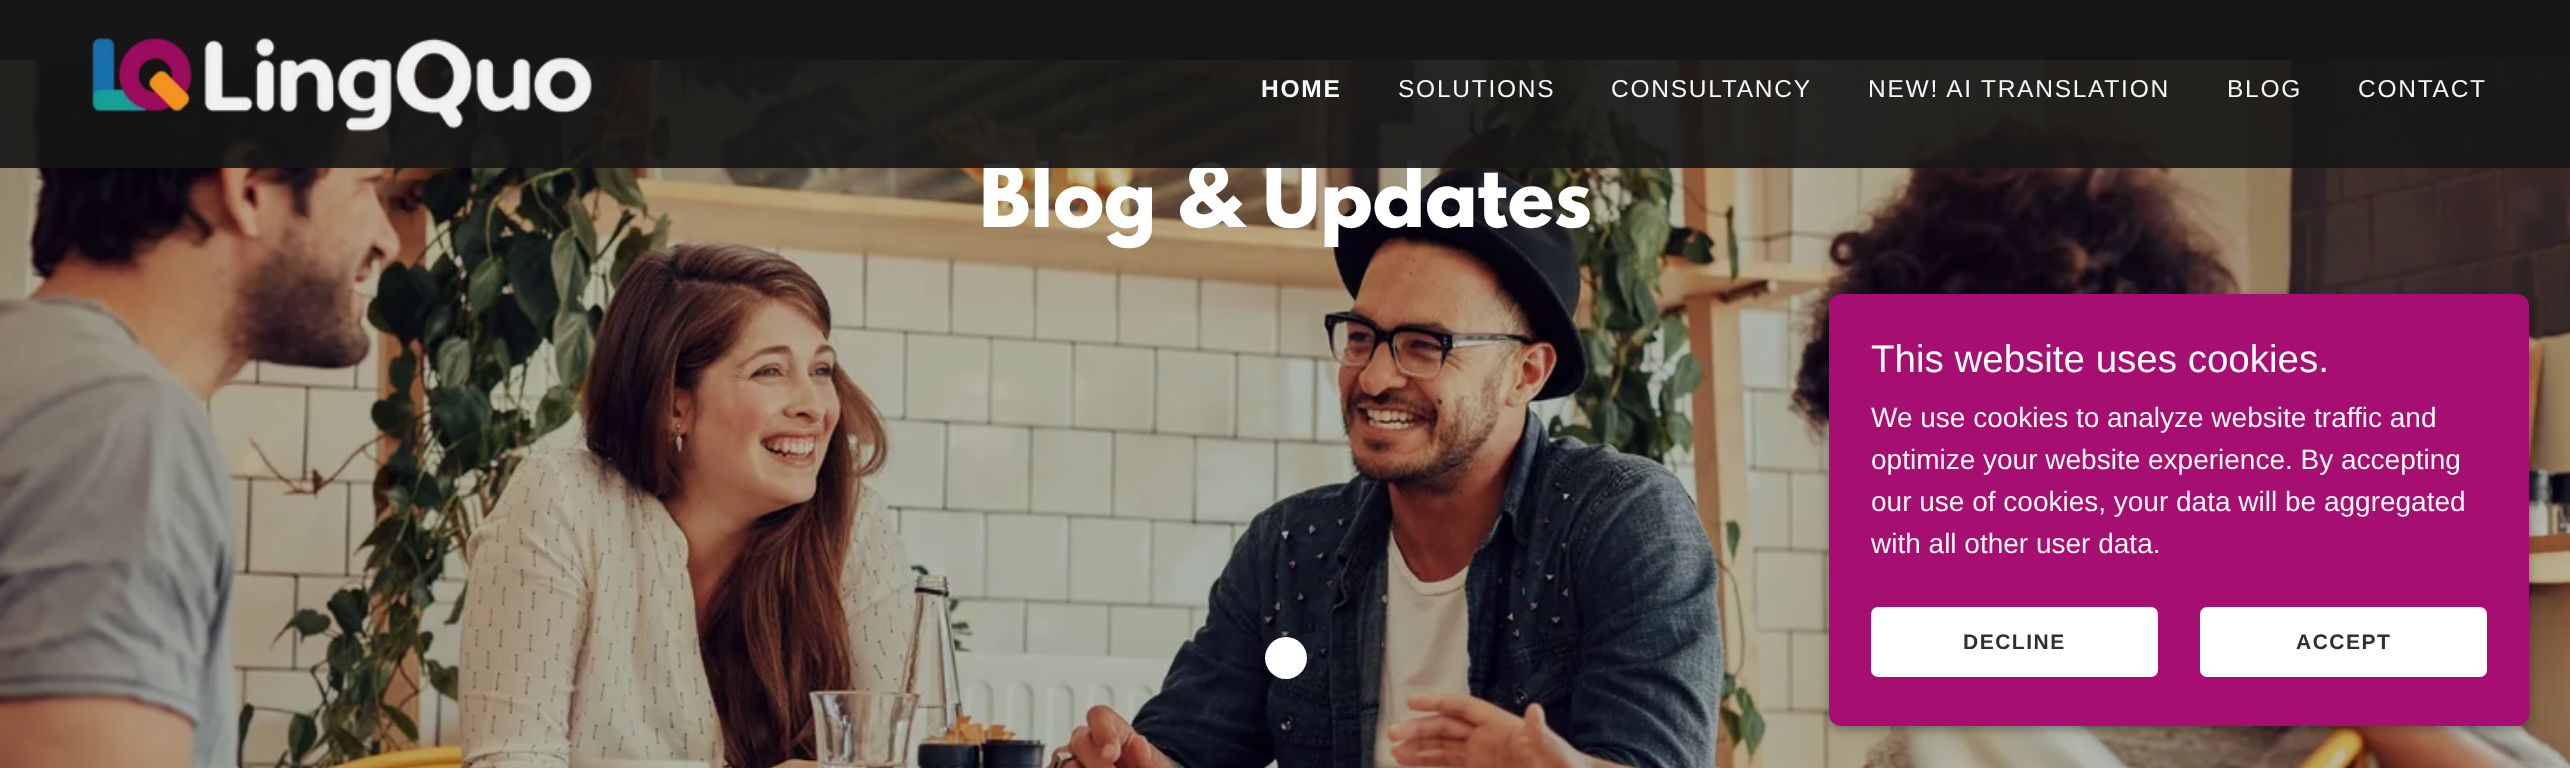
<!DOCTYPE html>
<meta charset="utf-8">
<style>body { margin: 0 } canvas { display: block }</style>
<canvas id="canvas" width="2570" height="768"></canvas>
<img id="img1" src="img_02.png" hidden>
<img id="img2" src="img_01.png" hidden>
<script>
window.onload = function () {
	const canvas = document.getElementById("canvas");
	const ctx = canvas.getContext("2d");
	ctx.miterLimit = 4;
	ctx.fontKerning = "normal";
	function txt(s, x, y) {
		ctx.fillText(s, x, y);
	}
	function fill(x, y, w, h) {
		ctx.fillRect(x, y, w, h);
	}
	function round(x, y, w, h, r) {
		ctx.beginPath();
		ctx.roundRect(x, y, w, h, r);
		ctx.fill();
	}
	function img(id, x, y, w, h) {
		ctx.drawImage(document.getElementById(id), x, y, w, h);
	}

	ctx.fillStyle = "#FFFFFF";
	fill(0, 0, 2570, 768);
	ctx.fillStyle = "#161616";
	fill(0, 0, 2570, 60);
	img("img1", 0, 60, 2570, 708);
	ctx.fillStyle = "#FFFFFF";
	ctx.beginPath();
	ctx.arc(1286, 658, 21, 0, Math.PI * 2);
	ctx.fill();
	ctx.fillStyle = "rgba(0, 0, 0, 0.3)";
	ctx.filter = "blur(5px)";
	ctx.beginPath();
	ctx.roundRect(1829, 298, 700, 432, 12);
	ctx.fill();
	ctx.filter = "none";
	ctx.fillStyle = "#A60F71";
	round(1829, 294, 700, 432, 12);
	ctx.fillStyle = "#FFFFFF";
	round(1871, 607, 287, 70, 7);
	round(2200, 607, 287, 70, 7);
	ctx.font = "bold 77px League Spartan";
	txt("Blog & Updates", 979, 227);
	ctx.fillStyle = "rgba(22, 22, 22, 0.9)";
	fill(0, 60, 2570, 108);
	ctx.letterSpacing = "1.75px";
	ctx.font = "24.5px Liberation Sans";
	ctx.fillStyle = "#F7F7F7";
	txt("CONTACT", 2358, 97);
	txt("BLOG", 2227, 97);
	txt("NEW! AI TRANSLATION", 1868, 97);
	txt("CONSULTANCY", 1611, 97);
	txt("SOLUTIONS", 1398, 97);
	ctx.font = "bold 24.5px Liberation Sans";
	txt("HOME", 1261, 97);
	img("img2", 91, 37, 501, 95);
	ctx.letterSpacing = "0px";
	ctx.font = "38.5px Liberation Sans";
	ctx.fillStyle = "#FFFFFF";
	txt("This website uses cookies.", 1871, 372);
	ctx.font = "28px Liberation Sans";
	ctx.fillStyle = "#F7F7F7";
	txt("We use cookies to analyze website traffic and", 1871, 427);
	txt("optimize your website experience. By accepting", 1871, 469);
	txt("our use of cookies, your data will be aggregated", 1871, 511);
	txt("with all other user data.", 1871, 553);
	ctx.letterSpacing = "1.5px";
	ctx.font = "bold 21px Liberation Sans";
	ctx.fillStyle = "#303030";
	txt("DECLINE", 1963, 649);
	txt("ACCEPT", 2296, 649);
};
</script>
